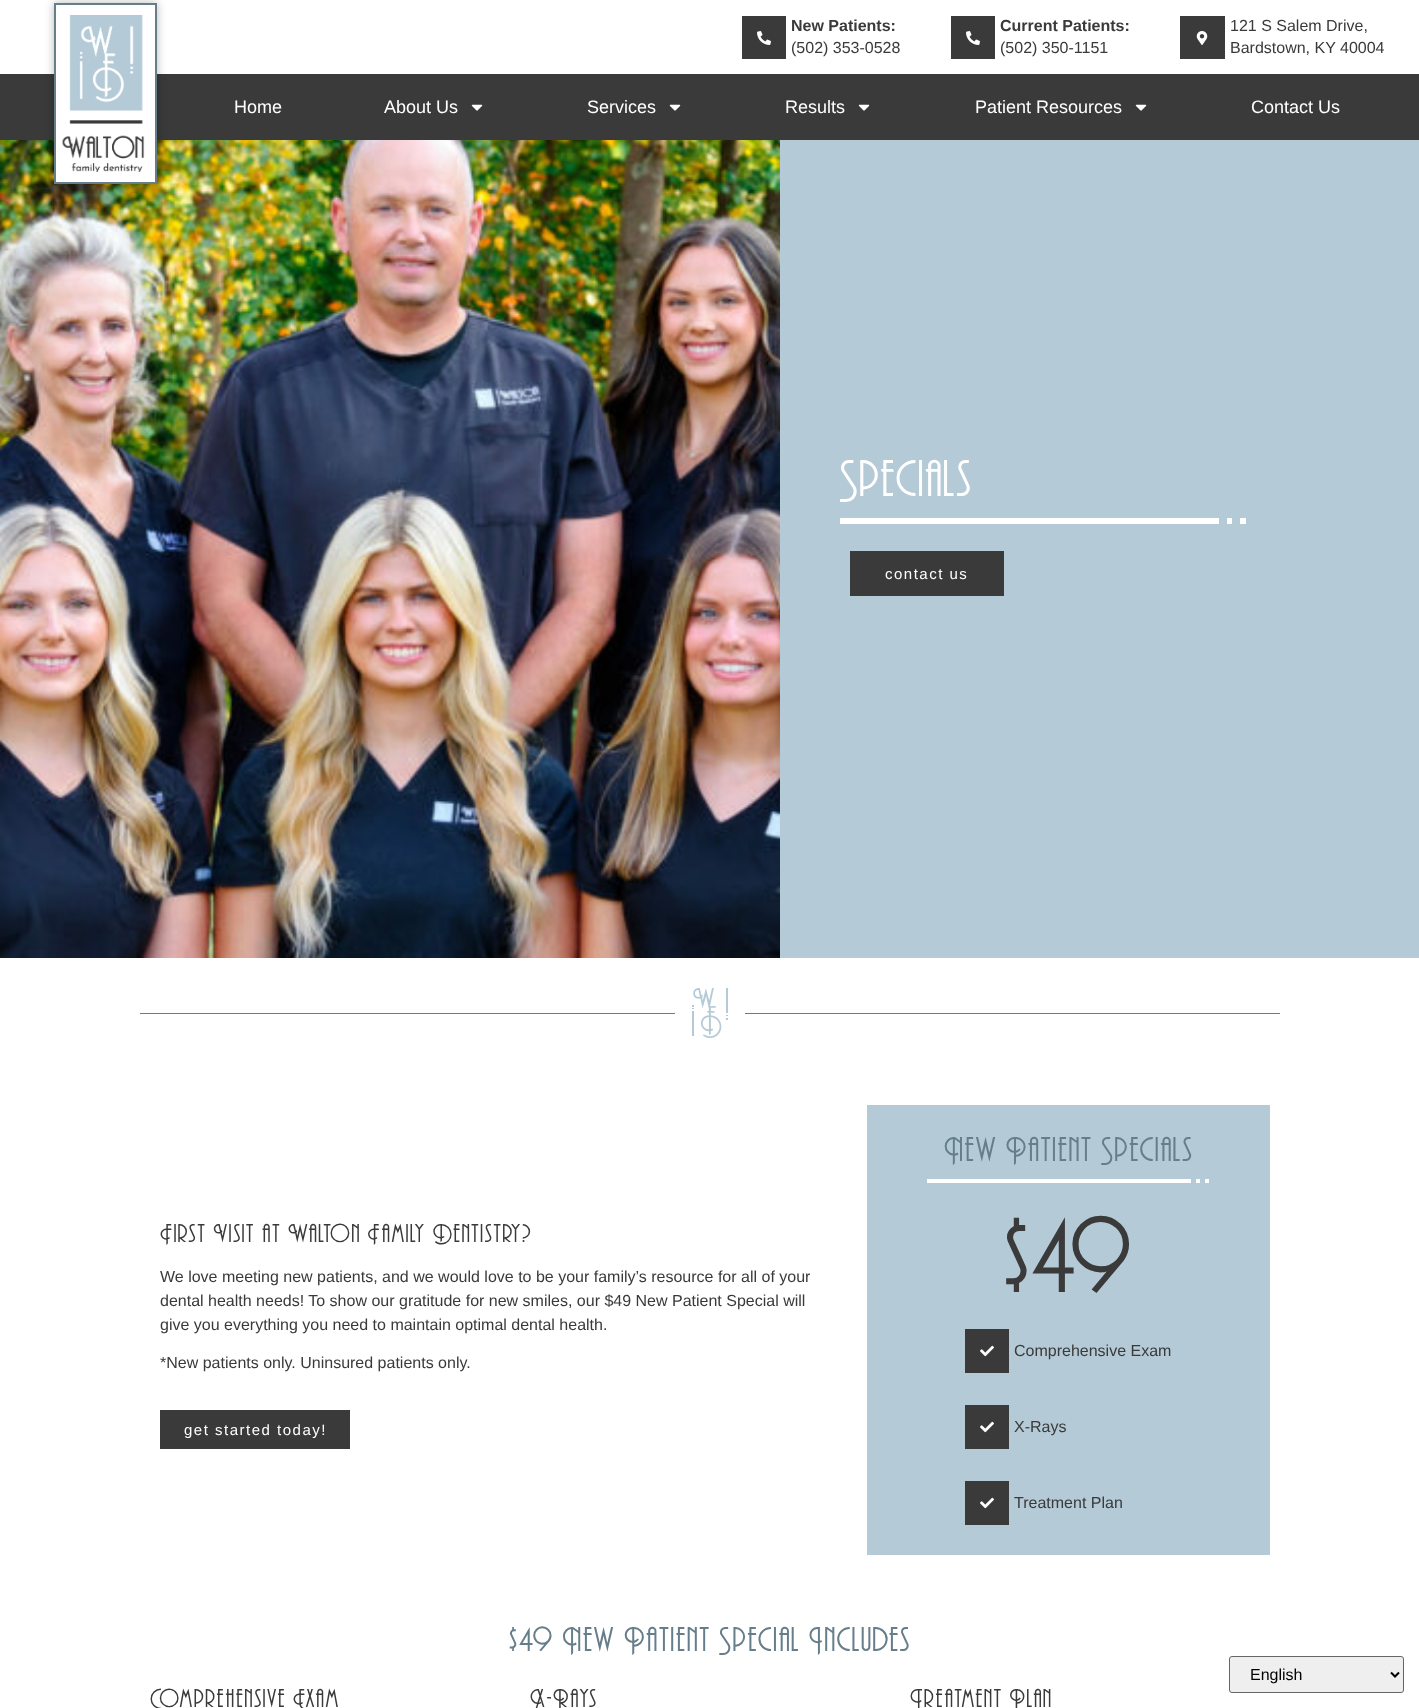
<!DOCTYPE html>
<meta charset="utf-8">
<style>body { margin: 0 } canvas { display: block }</style>
<canvas id="canvas" width="1419" height="1708"></canvas>
<img id="img1" src="img_01.png" hidden>
<img id="img2" src="img_02.png" hidden>
<img id="img3" src="img_05.png" hidden>
<img id="img4" src="img_03.png" hidden>
<img id="img5" src="img_04.png" hidden>
<img id="img6" src="img_06.png" hidden>
<img id="img7" src="img_07.png" hidden>
<script>
window.onload = function () {
	const canvas = document.getElementById("canvas");
	const ctx = canvas.getContext("2d");
	ctx.miterLimit = 4;
	ctx.fontKerning = "normal";
	function txt(s, x, y) {
		ctx.fillText(s, x, y);
	}
	function fill(x, y, w, h) {
		ctx.fillRect(x, y, w, h);
	}
	function img(id, x, y, w, h) {
		ctx.drawImage(document.getElementById(id), x, y, w, h);
	}

	ctx.fillStyle = "#FFFFFF";
	fill(0, 0, 1419, 1708);
	ctx.fillStyle = "#3A3A3A";
	fill(742, 16, 44, 43);
	img("img1", 757, 31, 14, 14);
	fill(951, 16, 44, 43);
	img("img1", 966, 31, 14, 14);
	fill(1180, 16, 45, 43);
	img("img2", 1196, 31, 12, 14);
	fill(0, 74, 1419, 66);
	img("img3", 0, 140, 780, 818);
	ctx.fillStyle = "rgba(0, 0, 0, 0.28)";
	ctx.filter = "blur(5px)";
	ctx.beginPath();
	ctx.rect(54, 3, 103, 181);
	ctx.fill();
	ctx.filter = "none";
	ctx.fillStyle = "#FFFFFF";
	ctx.beginPath();
	ctx.rect(55, 4, 101, 179);
	ctx.fill();
	ctx.strokeStyle = "#667D8A";
	ctx.lineWidth = 2;
	ctx.stroke();
	img("img4", 62, 15, 83, 157);
	img("img5", 471, 104, 12, 7);
	img("img5", 669, 104, 12, 7);
	img("img5", 858, 104, 12, 7);
	img("img5", 1135, 104, 12, 7);
	ctx.fillStyle = "#B4CAD7";
	fill(780, 140, 639, 818);
	ctx.fillStyle = "#FFFFFF";
	fill(840, 518, 379, 6);
	fill(1227, 518, 5, 6);
	fill(1240, 518, 6, 6);
	ctx.fillStyle = "#3A3A3A";
	fill(850, 551, 154, 45);
	ctx.fillStyle = "#667D8A";
	fill(140, 1013, 1140, 1);
	ctx.fillStyle = "#FFFFFF";
	fill(675, 1013, 70, 1);
	img("img6", 692, 988, 36, 50);
	ctx.fillStyle = "#3A3A3A";
	fill(160, 1410, 190, 39);
	ctx.fillStyle = "#B4CAD7";
	fill(867, 1105, 403, 450);
	ctx.fillStyle = "#FFFFFF";
	fill(927, 1179, 264, 4);
	fill(1196, 1179, 4, 4);
	fill(1205, 1179, 4, 4);
	ctx.fillStyle = "#3A3A3A";
	fill(965, 1329, 44, 44);
	img("img7", 980, 1345, 14, 12);
	fill(965, 1405, 44, 44);
	img("img7", 980, 1421, 14, 12);
	fill(965, 1481, 44, 44);
	img("img7", 980, 1497, 14, 12);
	ctx.fillStyle = "#EFEFEF";
	ctx.beginPath();
	ctx.roundRect(1229.5, 1656.5, 174, 36, 2.5);
	ctx.fill();
	ctx.strokeStyle = "#666666";
	ctx.lineWidth = 1;
	ctx.stroke();
	ctx.beginPath();
	ctx.moveTo(1391, 1672.5);
	ctx.lineTo(1395, 1676.5);
	ctx.lineTo(1399, 1672.5);
	ctx.strokeStyle = "#000000";
	ctx.lineWidth = 2;
	ctx.stroke();
	ctx.font = "bold 16px Liberation Sans";
	ctx.fillStyle = "#3A3A3A";
	txt("New Patients:", 791, 31);
	ctx.font = "16px Liberation Sans";
	txt("(502) 353-0528", 791, 53);
	ctx.font = "bold 16px Liberation Sans";
	txt("Current Patients:", 1000, 31);
	ctx.font = "16px Liberation Sans";
	txt("(502) 350-1151", 1000, 53);
	txt("121 S Salem Drive,", 1230, 31);
	txt("Bardstown, KY 40004", 1230, 53);
	ctx.font = "18px Liberation Sans";
	ctx.fillStyle = "#FFFFFF";
	txt("Home", 234, 113);
	txt("About Us", 384, 113);
	txt("Services", 587, 113);
	txt("Results", 785, 113);
	txt("Patient Resources", 975, 113);
	txt("Contact Us", 1251, 113);
	ctx.letterSpacing = "1.5px";
	ctx.font = "48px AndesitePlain";
	txt("Specials", 840, 496);
	ctx.font = "15px Liberation Sans";
	txt("contact us", 885, 579);
	ctx.font = "24px AndesitePlain";
	ctx.fillStyle = "#3A3A3A";
	txt("First Visit at Walton Family Dentistry?", 160, 1242);
	ctx.letterSpacing = "0px";
	ctx.font = "16px Liberation Sans";
	txt("We love meeting new patients, and we would love to be your family’s resource for all of your", 160, 1282);
	txt("dental health needs! To show our gratitude for new smiles, our $49 New Patient Special will", 160, 1306);
	txt("give you everything you need to maintain optimal dental health.", 160, 1330);
	txt("*New patients only. Uninsured patients only.", 160, 1368);
	ctx.letterSpacing = "1.5px";
	ctx.font = "15px Liberation Sans";
	ctx.fillStyle = "#FFFFFF";
	txt("get started today!", 184, 1435);
	ctx.font = "32px AndesitePlain";
	ctx.fillStyle = "#667D8A";
	txt("New Patient Specials", 944, 1161);
	ctx.font = "99px AndesitePlain";
	ctx.fillStyle = "#3A3A3A";
	txt("$49", 1004, 1292);
	ctx.letterSpacing = "0px";
	ctx.font = "16px Liberation Sans";
	txt("Comprehensive Exam", 1014, 1356);
	txt("X-Rays", 1014, 1432);
	txt("Treatment Plan", 1014, 1508);
	ctx.letterSpacing = "1.5px";
	ctx.font = "32px AndesitePlain";
	ctx.fillStyle = "#667D8A";
	txt("$49 New Patient Special Includes", 509, 1651);
	ctx.font = "24px AndesitePlain";
	ctx.fillStyle = "#3A3A3A";
	txt("Comprehensive Exam", 150, 1707);
	txt("X-Rays", 530, 1707);
	txt("Treatment Plan", 910, 1707);
	ctx.letterSpacing = "0px";
	ctx.font = "16px Liberation Sans";
	ctx.fillStyle = "#000000";
	txt("English", 1250, 1680);
};
</script>
